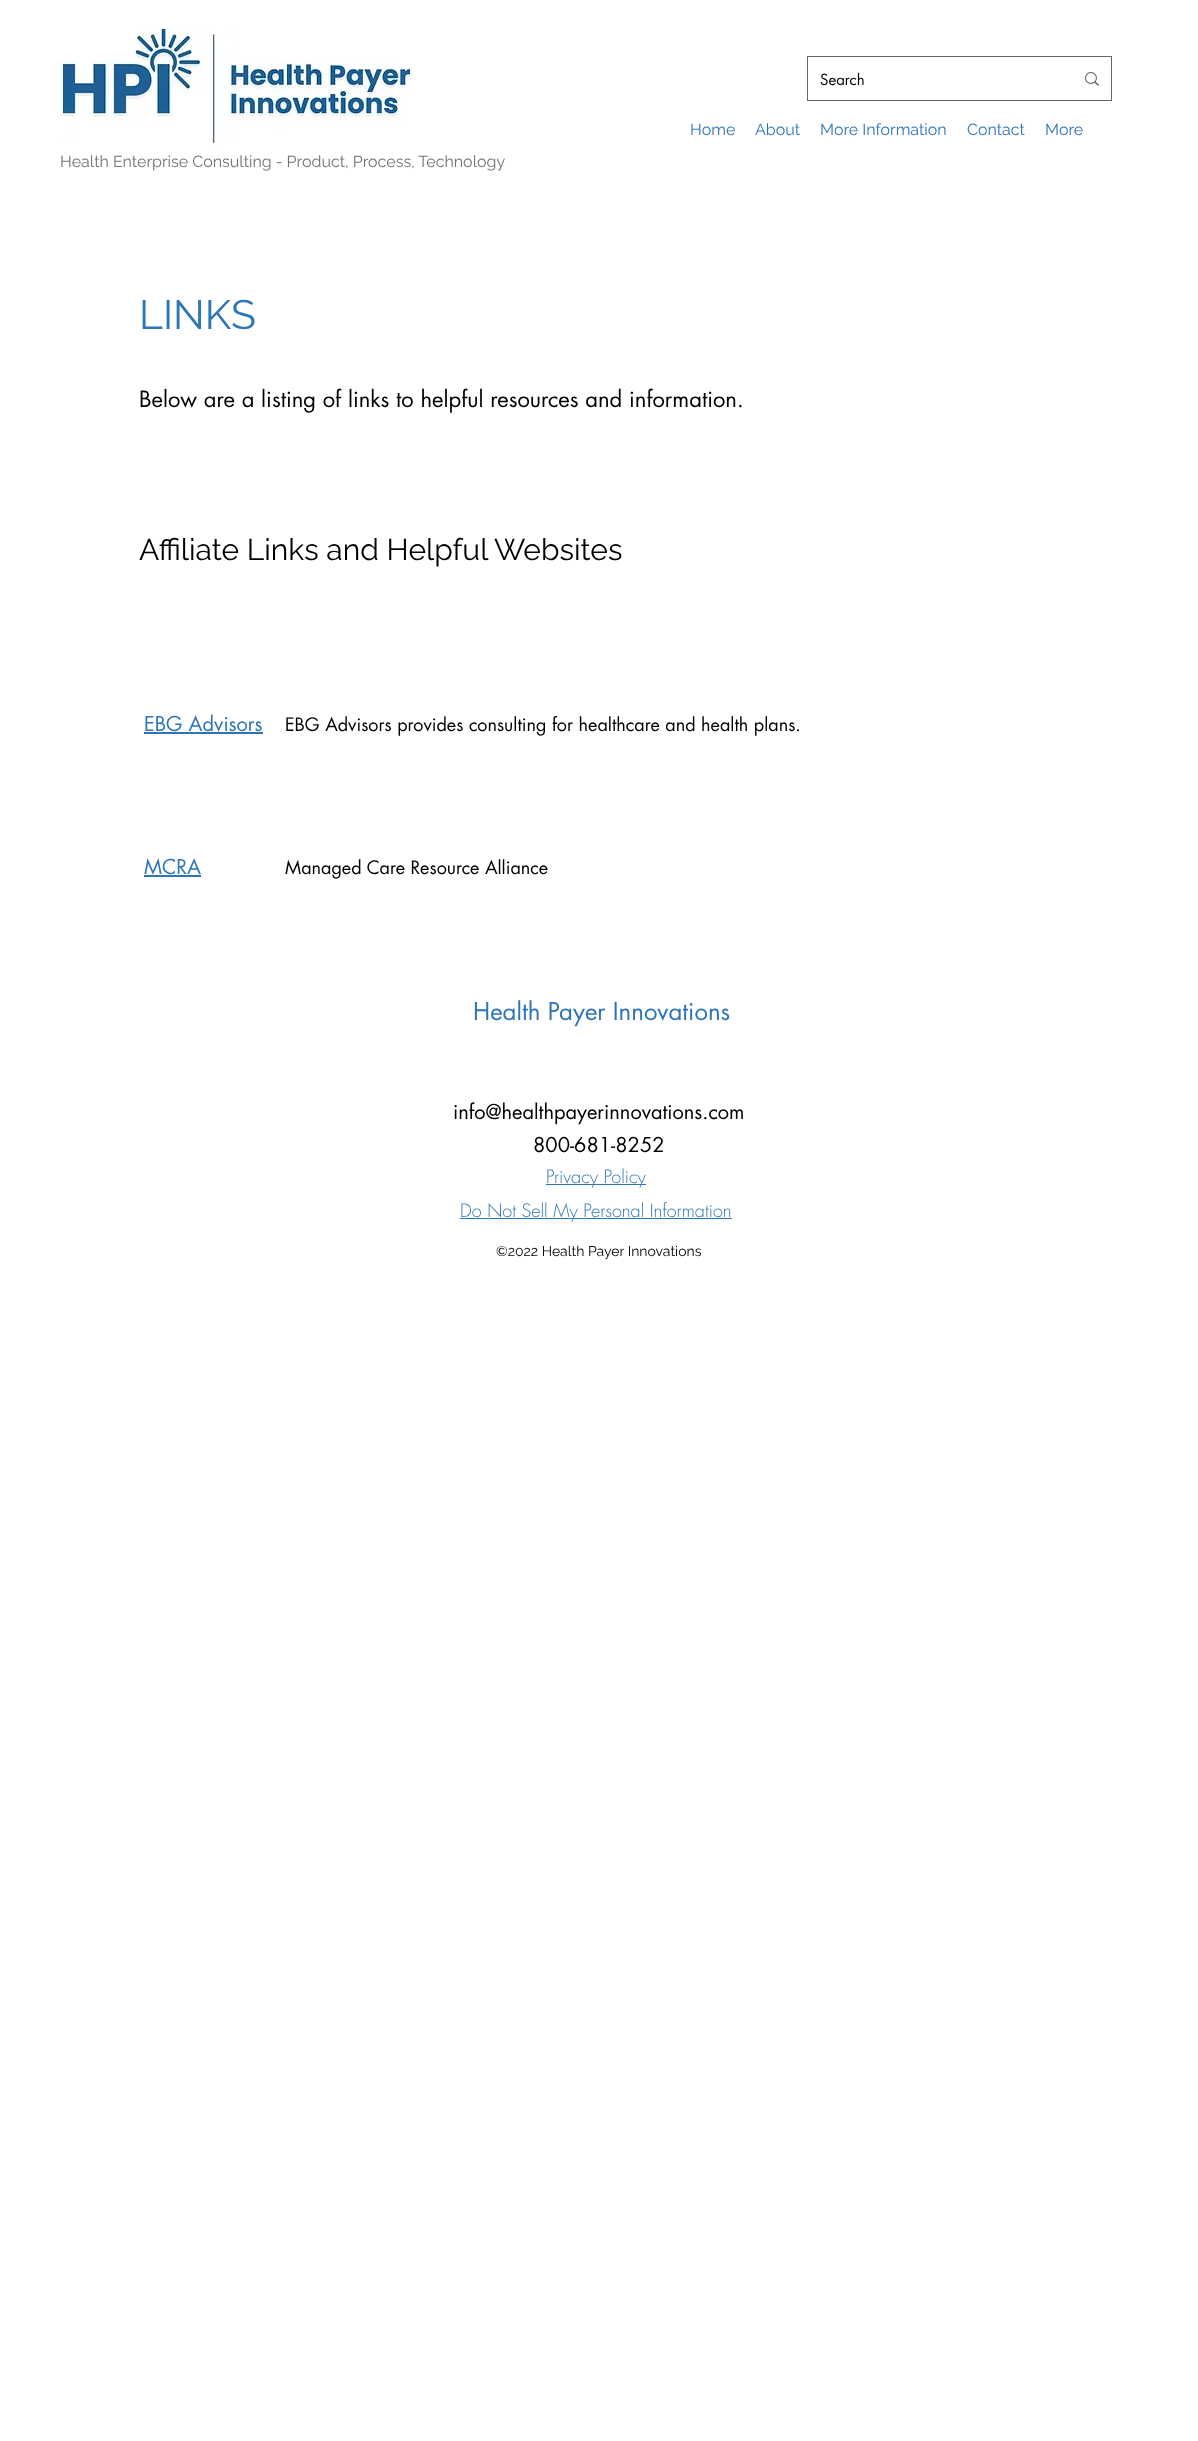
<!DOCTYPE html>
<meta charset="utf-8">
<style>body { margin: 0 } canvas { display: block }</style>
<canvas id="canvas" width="1198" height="2441"></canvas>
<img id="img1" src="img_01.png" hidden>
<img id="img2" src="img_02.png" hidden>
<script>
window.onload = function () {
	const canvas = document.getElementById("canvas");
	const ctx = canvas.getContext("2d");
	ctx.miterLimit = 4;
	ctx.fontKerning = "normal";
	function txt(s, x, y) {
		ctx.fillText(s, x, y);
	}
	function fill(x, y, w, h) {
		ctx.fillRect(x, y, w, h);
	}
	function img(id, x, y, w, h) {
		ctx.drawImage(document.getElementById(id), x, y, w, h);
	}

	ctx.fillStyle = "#FFFFFF";
	fill(0, 0, 1198, 2441);
	ctx.strokeStyle = "#666666";
	ctx.strokeRect(807.5, 56.5, 304, 44);
	img("img1", 1085, 72, 14, 14);
	img("img2", 60, 29, 352, 116);
	ctx.fillStyle = "#2E75B6";
	fill(144, 732, 119, 2);
	fill(144, 875, 57, 2);
	fill(546, 1184, 100, 1);
	fill(460, 1218, 272, 1);
	ctx.font = "15px futura";
	ctx.fillStyle = "#000000";
	txt("Search", 820, 85);
	ctx.font = "16px Raleway";
	ctx.fillStyle = "#2E75B6";
	txt("Home", 690, 135);
	txt("About", 755, 135);
	txt("More Information", 820, 135);
	txt("Contact", 967, 135);
	txt("More", 1045, 135);
	ctx.fillStyle = "#767171";
	txt("Health Enterprise Consulting - Product, Process, Technology", 60, 167);
	ctx.font = "41px Raleway";
	ctx.fillStyle = "#2E75B6";
	txt("LINKS", 139, 329);
	ctx.font = "22px futura";
	ctx.fillStyle = "#000000";
	txt("Below are a listing of links to helpful resources and information.", 139, 407);
	ctx.font = "30px Raleway";
	txt("Affiliate Links and Helpful Websites", 139, 560);
	ctx.font = "20px futura";
	ctx.fillStyle = "#2E75B6";
	txt("EBG Advisors", 144, 731);
	ctx.font = "18px futura";
	ctx.fillStyle = "#000000";
	txt("EBG Advisors provides consulting for healthcare and health plans.", 285, 731);
	ctx.font = "20px futura";
	ctx.fillStyle = "#2E75B6";
	txt("MCRA", 144, 874);
	ctx.font = "18px futura";
	ctx.fillStyle = "#000000";
	txt("Managed Care Resource Alliance", 285, 874);
	ctx.font = "24px futura";
	ctx.fillStyle = "#2E75B6";
	txt("Health Payer Innovations", 473, 1020);
	ctx.font = "20px futura";
	ctx.fillStyle = "#000000";
	txt("info@healthpayerinnovations.com", 453, 1119);
	txt("800-681-8252", 533, 1152);
	ctx.font = "300 18px futura";
	ctx.fillStyle = "#2E75B6";
	txt("Privacy Policy", 546, 1183);
	txt("Do Not Sell My Personal Information", 460, 1217);
	ctx.font = "14px Raleway";
	ctx.fillStyle = "#000000";
	txt("©2022 Health Payer Innovations", 496, 1256);
};
</script>
